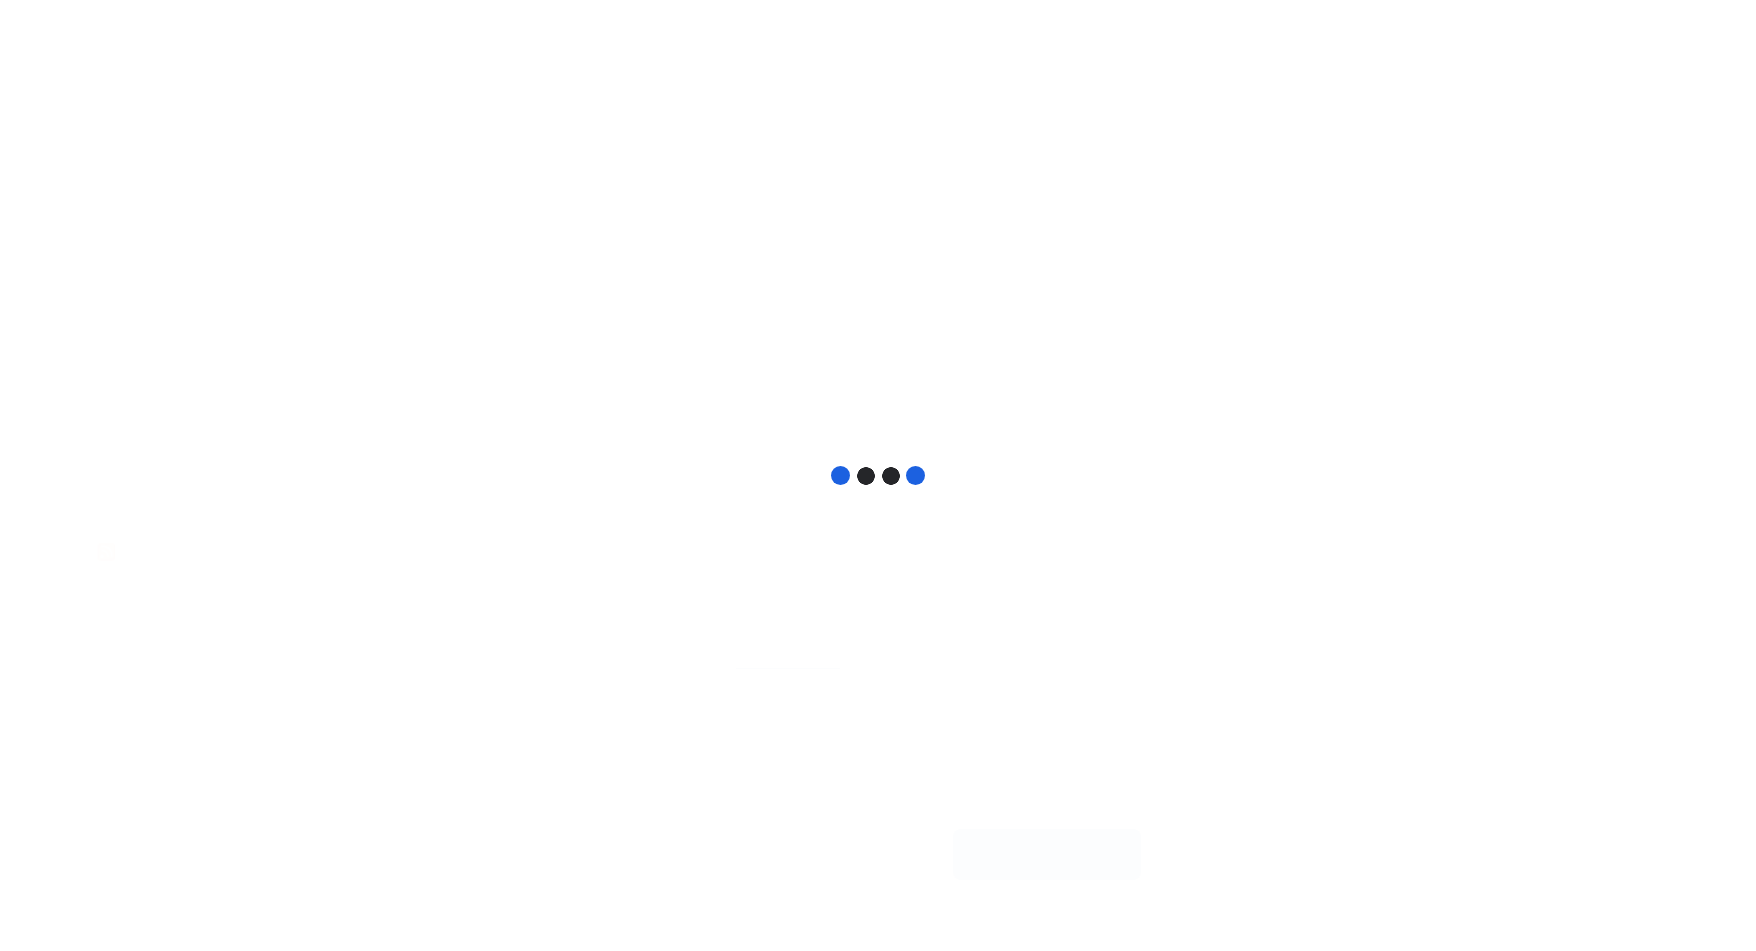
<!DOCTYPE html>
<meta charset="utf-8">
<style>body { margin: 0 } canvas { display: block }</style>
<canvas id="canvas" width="1756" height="951"></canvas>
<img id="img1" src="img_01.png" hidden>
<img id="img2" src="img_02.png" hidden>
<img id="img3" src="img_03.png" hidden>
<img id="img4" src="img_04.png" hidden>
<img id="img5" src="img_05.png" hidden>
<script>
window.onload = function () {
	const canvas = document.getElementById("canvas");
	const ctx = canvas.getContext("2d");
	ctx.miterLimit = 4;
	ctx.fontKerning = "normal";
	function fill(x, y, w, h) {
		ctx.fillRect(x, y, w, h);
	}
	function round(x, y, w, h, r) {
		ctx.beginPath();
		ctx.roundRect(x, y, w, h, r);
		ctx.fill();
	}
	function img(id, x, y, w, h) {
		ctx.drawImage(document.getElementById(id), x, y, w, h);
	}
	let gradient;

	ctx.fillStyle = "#FFFFFF";
	fill(0, 0, 1756, 951);
	img("img1", 458, 152, 15, 9);
	img("img2", 854, 152, 15, 9);
	img("img3", 1317, 152, 15, 9);
	img("img4", 1650, 148, 18, 18);
	gradient = ctx.createRadialGradient(891, 476, 0, 891, 476, 9);
	gradient.addColorStop(0.95, "#252629");
	gradient.addColorStop(1, "#FFFFFF");
	ctx.fillStyle = gradient;
	fill(882, 467, 18, 18);
	gradient = ctx.createRadialGradient(866, 476, 0, 866, 476, 9);
	gradient.addColorStop(0.95, "#252629");
	gradient.addColorStop(1, "#FFFFFF");
	ctx.fillStyle = gradient;
	fill(857, 467, 18, 18);
	ctx.fillStyle = "#1C61E0";
	ctx.beginPath();
	ctx.arc(840.5, 475.5, 9.5, 0, Math.PI * 2);
	ctx.fill();
	ctx.beginPath();
	ctx.arc(915.5, 475.5, 9.5, 0, Math.PI * 2);
	ctx.fill();
	img("img5", 97, 543, 18, 18);
	ctx.fillStyle = "#FCFDFE";
	fill(736, 668, 104, 1);
	round(953, 829, 188, 51, 8);
};
</script>
